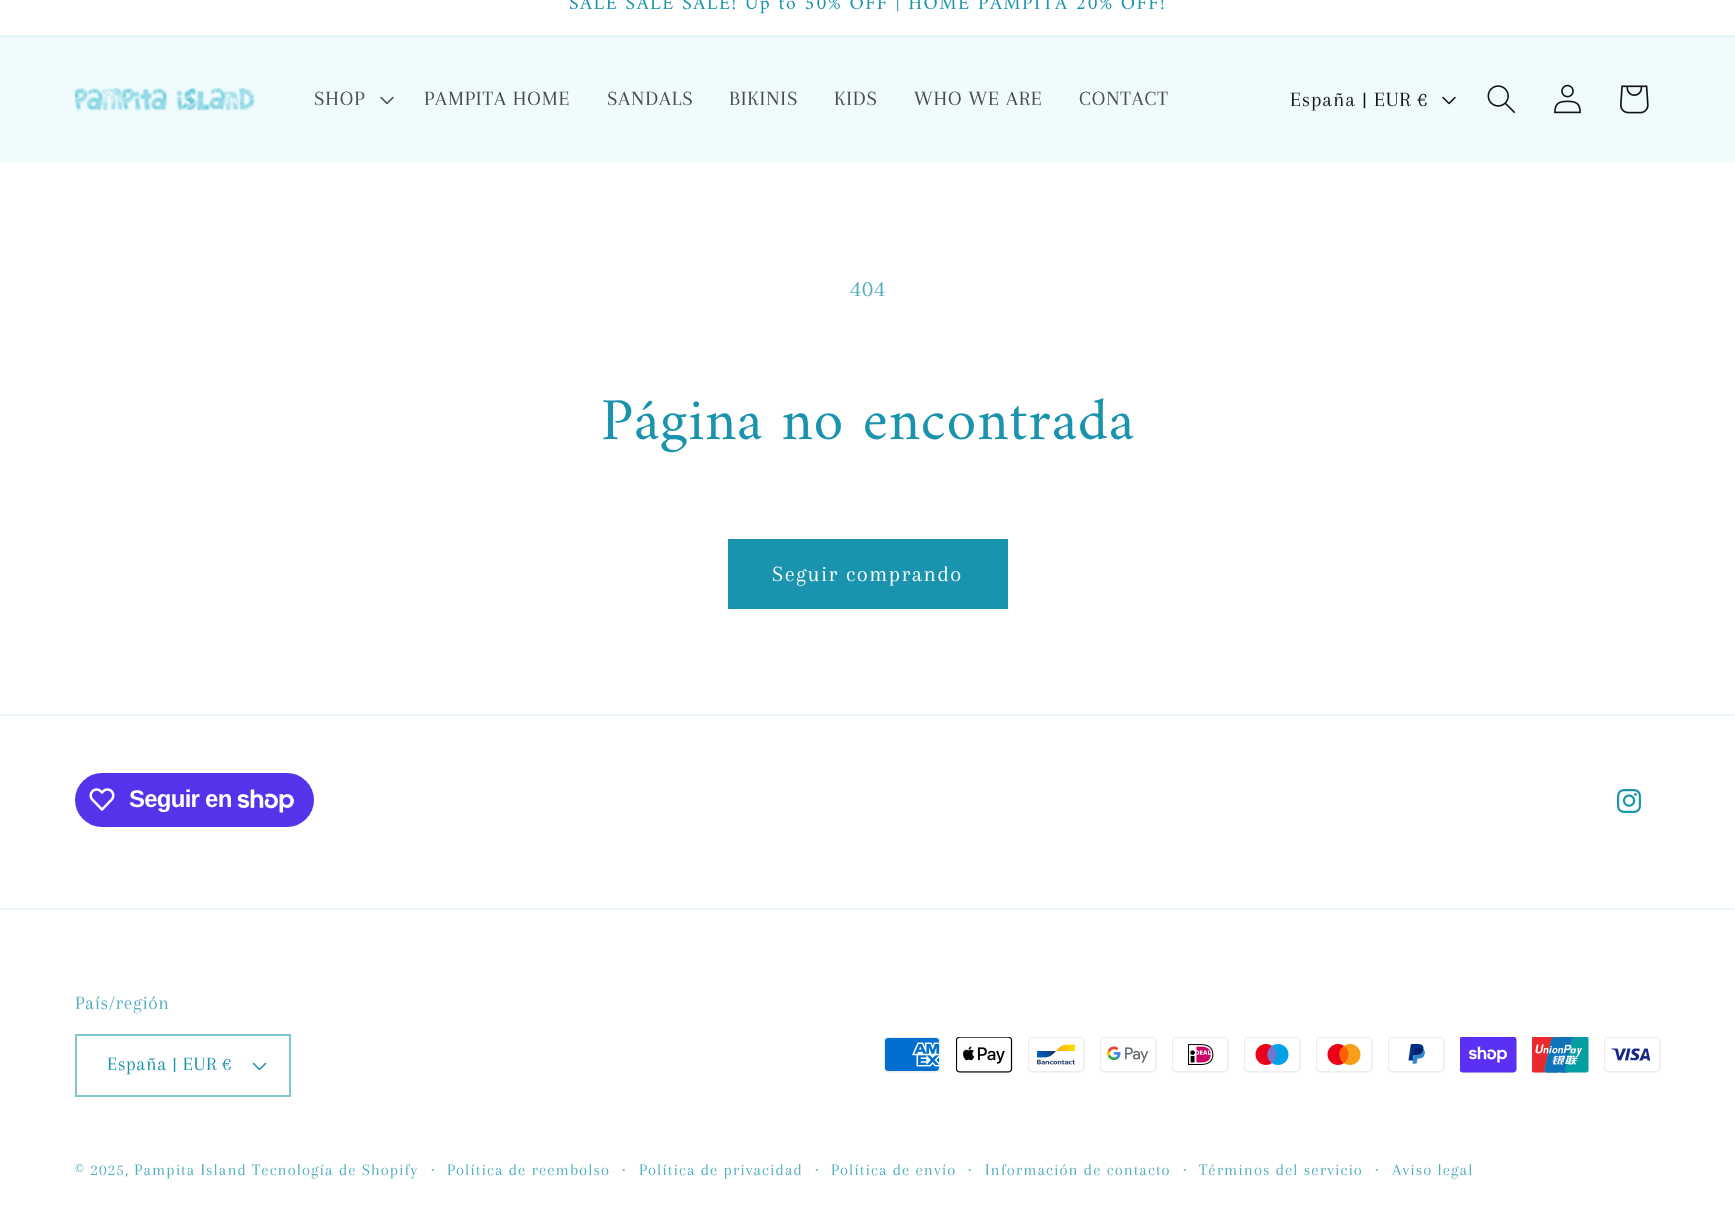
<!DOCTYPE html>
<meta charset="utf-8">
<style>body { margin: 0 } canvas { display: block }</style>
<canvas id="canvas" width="1735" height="1223"></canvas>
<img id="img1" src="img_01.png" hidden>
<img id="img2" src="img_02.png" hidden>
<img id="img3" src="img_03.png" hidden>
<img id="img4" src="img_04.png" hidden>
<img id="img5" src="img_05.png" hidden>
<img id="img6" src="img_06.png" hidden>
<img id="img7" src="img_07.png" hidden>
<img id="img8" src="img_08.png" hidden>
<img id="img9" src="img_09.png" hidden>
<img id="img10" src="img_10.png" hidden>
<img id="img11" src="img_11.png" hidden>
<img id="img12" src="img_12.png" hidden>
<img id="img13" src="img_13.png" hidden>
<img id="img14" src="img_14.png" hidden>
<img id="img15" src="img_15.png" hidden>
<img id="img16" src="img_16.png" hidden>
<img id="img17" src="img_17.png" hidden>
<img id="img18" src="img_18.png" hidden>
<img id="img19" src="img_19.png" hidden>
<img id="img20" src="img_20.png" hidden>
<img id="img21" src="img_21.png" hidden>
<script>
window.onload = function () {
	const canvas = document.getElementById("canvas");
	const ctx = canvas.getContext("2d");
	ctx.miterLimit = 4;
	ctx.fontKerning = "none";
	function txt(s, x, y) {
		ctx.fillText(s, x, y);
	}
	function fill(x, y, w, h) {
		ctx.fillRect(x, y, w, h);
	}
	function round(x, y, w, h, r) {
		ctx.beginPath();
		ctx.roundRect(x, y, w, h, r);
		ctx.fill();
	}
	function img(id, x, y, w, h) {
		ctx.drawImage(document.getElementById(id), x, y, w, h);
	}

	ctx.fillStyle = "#FFFFFF";
	fill(0, 0, 1735, 1223);
	ctx.fillStyle = "#EDF6F9";
	fill(0, 35, 1735, 1);
	ctx.fillStyle = "#EFFBFD";
	fill(0, 37, 1735, 125);
	ctx.fillStyle = "#DEF3F7";
	fill(0, 36, 1735, 1);
	img("img1", 75, 88, 180, 23);
	img("img2", 380, 96, 14, 9);
	img("img3", 1442, 96, 14, 9);
	img("img4", 1487, 85, 28, 28);
	img("img5", 1554, 84, 27, 30);
	img("img6", 1620, 85, 29, 29);
	ctx.fillStyle = "#1A93AE";
	fill(728, 539, 280, 70);
	ctx.fillStyle = "#EDF6F9";
	fill(0, 714, 1735, 2);
	ctx.fillStyle = "#5433EB";
	round(75, 773, 239, 54, 27);
	img("img7", 89, 788, 26, 23);
	img("img8", 237, 789, 57, 24);
	img("img9", 1617, 789, 24, 24);
	ctx.fillStyle = "#EDF6F9";
	fill(0, 908, 1735, 2);
	img("img10", 252, 1062, 15, 9);
	ctx.strokeStyle = "#81C4D2";
	ctx.lineWidth = 2;
	ctx.strokeRect(76, 1035, 214, 61);
	img("img11", 884, 1037, 57, 36);
	img("img12", 956, 1037, 57, 36);
	img("img13", 1028, 1037, 57, 36);
	img("img14", 1100, 1037, 57, 36);
	img("img15", 1172, 1037, 57, 36);
	img("img16", 1244, 1037, 57, 36);
	img("img17", 1316, 1037, 57, 36);
	img("img18", 1388, 1037, 57, 36);
	img("img19", 1460, 1037, 57, 36);
	img("img20", 1532, 1037, 57, 36);
	img("img21", 1604, 1037, 57, 36);
	ctx.letterSpacing = "1.5px";
	ctx.font = "19.5px Amiri";
	ctx.fillStyle = "#1A93AE";
	txt("SALE SALE SALE! Up to 50% OFF | HOME PAMPITA 20% OFF!", 569, 9);
	ctx.letterSpacing = "0.9px";
	ctx.font = "21px Arapey";
	ctx.fillStyle = "#494C4D";
	txt("SHOP", 314, 105);
	txt("PAMPITA HOME", 424, 105);
	txt("SANDALS", 607, 105);
	txt("BIKINIS", 729, 105);
	txt("KIDS", 834, 105);
	txt("WHO WE ARE", 914, 105);
	txt("CONTACT", 1079, 105);
	ctx.fillStyle = "#121212";
	txt("España | EUR €", 1290, 106);
	ctx.font = "24px Arapey";
	ctx.fillStyle = "#53AEC2";
	txt("404", 850, 296);
	ctx.font = "60px Amiri";
	ctx.fillStyle = "#1A93AE";
	txt("Página no encontrada", 601, 439);
	ctx.letterSpacing = "1.5px";
	ctx.font = "22.5px Arapey";
	ctx.fillStyle = "#FFFFFF";
	txt("Seguir comprando", 772, 581);
	ctx.letterSpacing = "-0.75px";
	ctx.font = "bold 24px Liberation Sans";
	txt("Seguir en", 129, 807);
	ctx.letterSpacing = "0.6px";
	ctx.font = "19.5px Arapey";
	ctx.fillStyle = "#53AEC2";
	txt("País/región", 75, 1009);
	ctx.fillStyle = "#1A93AE";
	txt("España | EUR €", 107, 1070);
	ctx.letterSpacing = "1.05px";
	ctx.font = "16.5px Arapey";
	ctx.fillStyle = "#53AEC2";
	txt("© 2025, Pampita Island", 75, 1175);
	txt("Tecnología de Shopify", 252, 1175);
	ctx.font = "18px Arapey";
	txt("·", 431, 1175);
	ctx.font = "16.5px Arapey";
	txt("Política de reembolso", 447, 1175);
	ctx.font = "18px Arapey";
	txt("·", 622, 1175);
	ctx.font = "16.5px Arapey";
	txt("Política de privacidad", 639, 1175);
	ctx.font = "18px Arapey";
	txt("·", 815, 1175);
	ctx.font = "16.5px Arapey";
	txt("Política de envío", 831, 1175);
	ctx.font = "18px Arapey";
	txt("·", 968, 1175);
	ctx.font = "16.5px Arapey";
	txt("Información de contacto", 985, 1175);
	ctx.font = "18px Arapey";
	txt("·", 1183, 1175);
	ctx.font = "16.5px Arapey";
	txt("Términos del servicio", 1199, 1175);
	ctx.font = "18px Arapey";
	txt("·", 1375, 1175);
	ctx.font = "16.5px Arapey";
	txt("Aviso legal", 1392, 1175);
};
</script>
